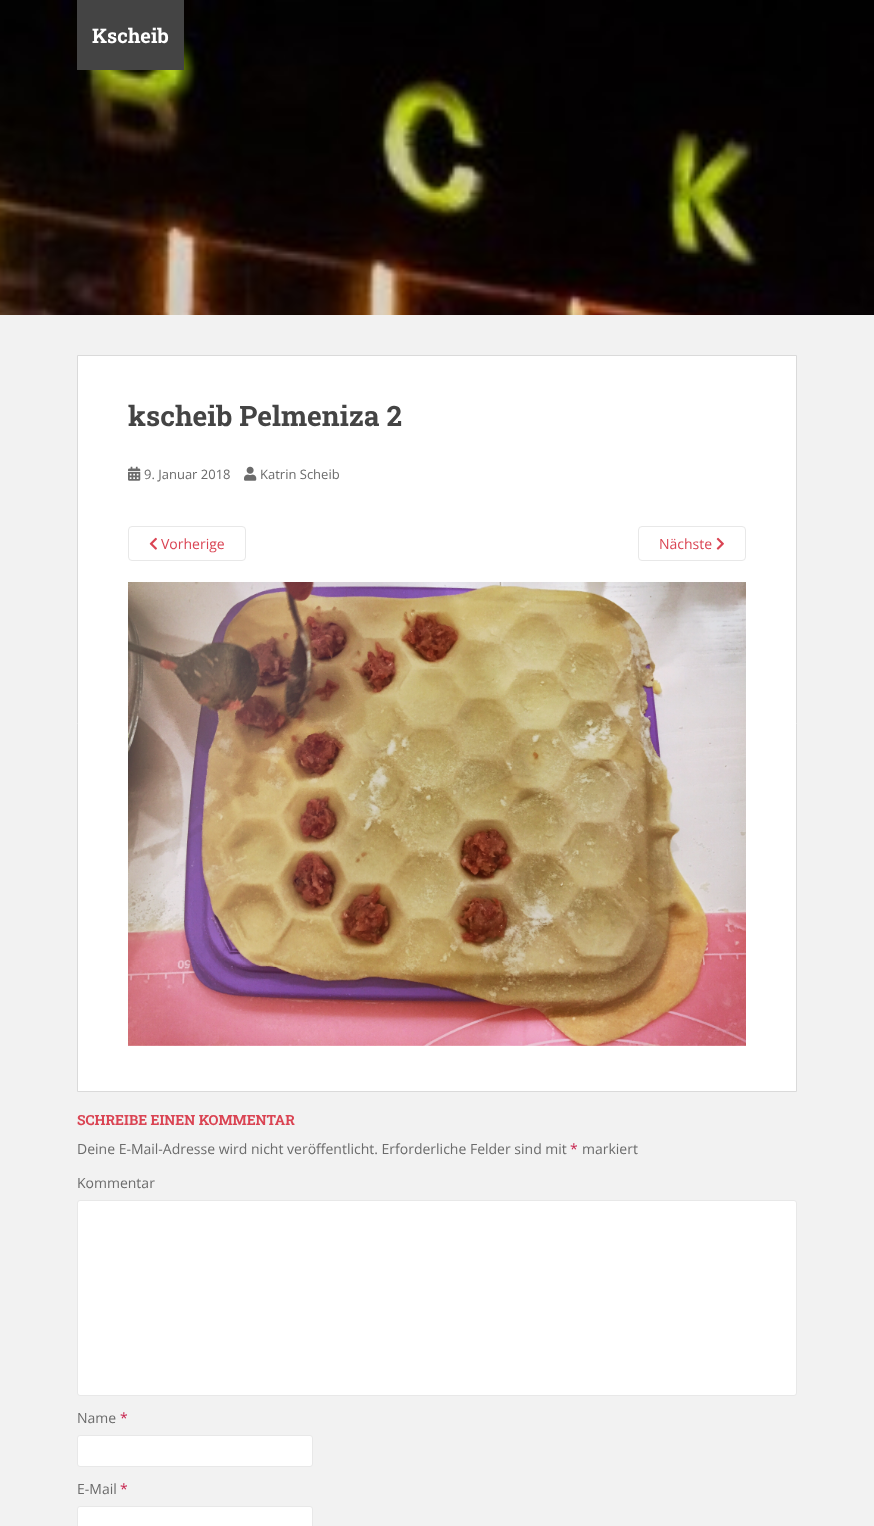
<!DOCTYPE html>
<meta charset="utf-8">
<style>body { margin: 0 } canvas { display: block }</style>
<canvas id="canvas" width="874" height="1526"></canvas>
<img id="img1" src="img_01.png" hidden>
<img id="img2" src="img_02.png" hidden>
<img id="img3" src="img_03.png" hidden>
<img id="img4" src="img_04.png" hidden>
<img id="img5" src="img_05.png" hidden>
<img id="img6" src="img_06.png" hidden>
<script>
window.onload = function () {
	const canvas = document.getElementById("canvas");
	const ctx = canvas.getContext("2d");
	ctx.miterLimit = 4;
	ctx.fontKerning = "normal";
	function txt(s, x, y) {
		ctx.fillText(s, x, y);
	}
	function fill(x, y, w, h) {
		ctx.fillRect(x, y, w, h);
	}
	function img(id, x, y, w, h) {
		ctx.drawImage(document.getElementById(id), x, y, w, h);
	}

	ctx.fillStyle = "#F2F2F2";
	fill(0, 0, 874, 1526);
	img("img1", 0, 0, 874, 315);
	ctx.fillStyle = "#444444";
	fill(77, 0, 107, 70);
	ctx.fillStyle = "#FFFFFF";
	ctx.beginPath();
	ctx.rect(77.5, 355.5, 719, 736);
	ctx.fill();
	ctx.strokeStyle = "#DADADA";
	ctx.stroke();
	img("img2", 128, 466, 13, 15);
	img("img3", 244, 466, 13, 15);
	ctx.beginPath();
	ctx.roundRect(128.5, 526.5, 117, 34, 3.5);
	ctx.strokeStyle = "#E8E8E8";
	ctx.stroke();
	img("img4", 149, 537, 8, 13);
	ctx.beginPath();
	ctx.roundRect(638.5, 526.5, 107, 34, 3.5);
	ctx.stroke();
	img("img5", 716, 537, 8, 13);
	img("img6", 128, 582, 618, 464);
	ctx.beginPath();
	ctx.roundRect(77.5, 1200.5, 719, 195, 2.5);
	ctx.fill();
	ctx.stroke();
	ctx.beginPath();
	ctx.roundRect(77.5, 1435.5, 235, 31, 2.5);
	ctx.fill();
	ctx.stroke();
	ctx.beginPath();
	ctx.roundRect(77.5, 1506.5, 235, 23, 2.5);
	ctx.fill();
	ctx.stroke();
	ctx.font = "bold 20px Roboto Slab";
	txt("Kscheib", 92, 43);
	ctx.font = "bold 28px Roboto Slab";
	ctx.fillStyle = "#444444";
	txt("kscheib Pelmeniza 2", 128, 426);
	ctx.font = "13px Open Sans";
	ctx.fillStyle = "#6B6B6B";
	txt("9. Januar 2018", 144, 479);
	txt("Katrin Scheib", 260, 479);
	ctx.font = "14px Open Sans";
	ctx.fillStyle = "#DA4453";
	txt("Vorherige", 161, 549);
	txt("Nächste", 659, 549);
	ctx.font = "bold 14px Roboto Slab";
	txt("SCHREIBE EINEN KOMMENTAR", 77, 1125);
	ctx.font = "14px Open Sans";
	ctx.fillStyle = "#6B6B6B";
	txt("Deine E-Mail-Adresse wird nicht veröffentlicht. Erforderliche Felder sind mit", 77, 1154);
	ctx.fillStyle = "#C7254E";
	txt("*", 570, 1154);
	ctx.fillStyle = "#6B6B6B";
	txt("markiert", 582, 1154);
	txt("Kommentar", 77, 1188);
	txt("Name", 77, 1423);
	ctx.fillStyle = "#C7254E";
	txt("*", 120, 1423);
	ctx.fillStyle = "#6B6B6B";
	txt("E-Mail", 77, 1494);
	ctx.fillStyle = "#C7254E";
	txt("*", 120, 1494);
};
</script>
